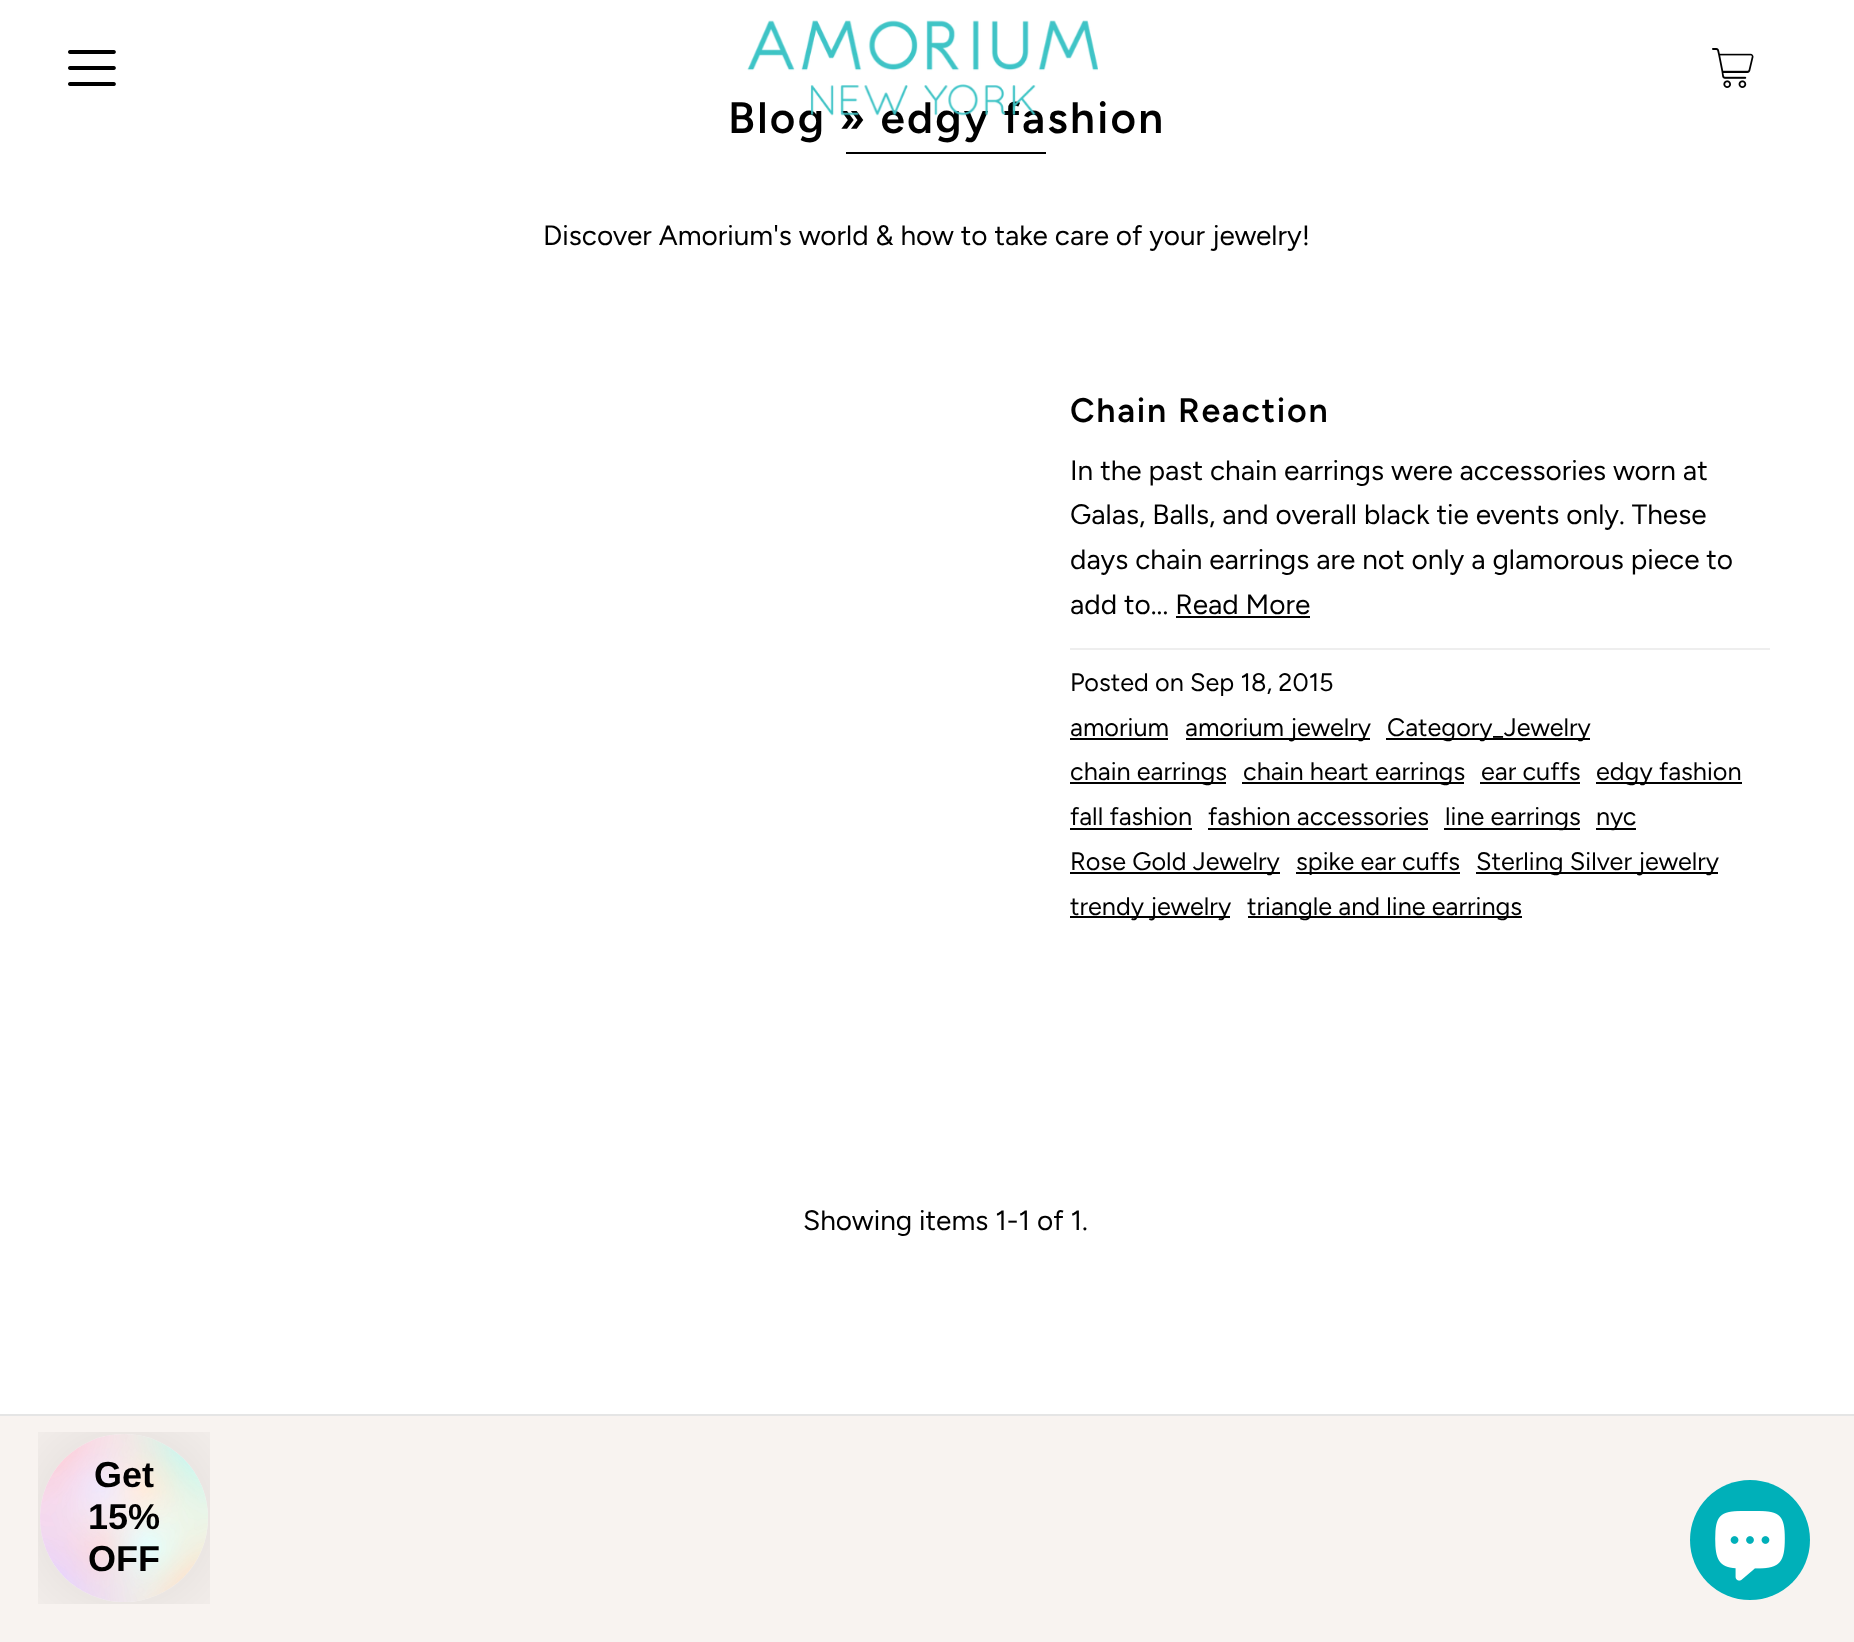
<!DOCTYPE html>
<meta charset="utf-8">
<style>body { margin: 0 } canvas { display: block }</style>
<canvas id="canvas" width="1854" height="1642"></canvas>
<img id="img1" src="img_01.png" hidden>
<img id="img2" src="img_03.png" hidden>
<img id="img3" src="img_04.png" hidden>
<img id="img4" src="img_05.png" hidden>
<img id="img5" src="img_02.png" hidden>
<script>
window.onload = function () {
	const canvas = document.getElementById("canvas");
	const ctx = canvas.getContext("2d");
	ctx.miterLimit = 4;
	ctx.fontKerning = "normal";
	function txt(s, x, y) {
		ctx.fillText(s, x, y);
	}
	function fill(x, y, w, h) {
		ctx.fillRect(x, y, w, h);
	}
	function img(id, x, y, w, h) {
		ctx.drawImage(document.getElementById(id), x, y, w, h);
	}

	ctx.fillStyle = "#FFFFFF";
	fill(0, 0, 1854, 1642);
	img("img1", 68, 50, 48, 36);
	img("img2", 1712, 48, 42, 40);
	ctx.fillStyle = "#000000";
	fill(846, 152, 200, 2);
	fill(1176, 616, 134, 2);
	ctx.fillStyle = "#EEEEEE";
	fill(1070, 648, 700, 2);
	ctx.fillStyle = "#000000";
	fill(1070, 738, 98, 2);
	fill(1186, 738, 184, 2);
	fill(1386, 738, 204, 2);
	fill(1070, 782, 156, 2);
	fill(1242, 782, 222, 2);
	fill(1480, 782, 100, 2);
	fill(1596, 782, 146, 2);
	fill(1070, 828, 122, 2);
	fill(1208, 828, 220, 2);
	fill(1444, 828, 136, 2);
	fill(1596, 828, 40, 2);
	fill(1070, 872, 210, 2);
	fill(1296, 872, 164, 2);
	fill(1476, 872, 242, 2);
	fill(1070, 916, 160, 2);
	fill(1248, 916, 274, 2);
	ctx.fillStyle = "#F8F3F0";
	fill(0, 1416, 1854, 226);
	ctx.fillStyle = "#E5E5E5";
	fill(0, 1414, 1854, 2);
	ctx.fillStyle = "#FFFFFF";
	ctx.beginPath();
	ctx.arc(124, 1518, 84, 0, Math.PI * 2);
	ctx.fill();
	img("img3", 38, 1432, 172, 172);
	ctx.fillStyle = "#00B0B9";
	ctx.beginPath();
	ctx.arc(1750, 1540, 60, 0, Math.PI * 2);
	ctx.fill();
	img("img4", 1715, 1511, 70, 70);
	ctx.letterSpacing = "2.25px";
	ctx.font = "600 44px Figtree";
	ctx.fillStyle = "#000000";
	txt("Blog » edgy fashion", 728, 133);
	img("img5", 747, 20, 351, 96);
	ctx.letterSpacing = "0px";
	ctx.font = "28px Figtree";
	txt("Discover Amorium's world & how to take care of your jewelry!", 543, 245);
	ctx.letterSpacing = "1.75px";
	ctx.font = "600 34px Figtree";
	txt("Chain Reaction", 1070, 422);
	ctx.letterSpacing = "0px";
	ctx.font = "28px Figtree";
	txt("In the past chain earrings were accessories worn at", 1070, 480);
	txt("Galas, Balls, and overall black tie events only. These", 1070, 524);
	txt("days chain earrings are not only a glamorous piece to", 1070, 569);
	txt("add to... Read More", 1070, 614);
	ctx.font = "25.25px Figtree";
	txt("Posted on Sep 18, 2015", 1070, 691);
	txt("amorium", 1070, 736);
	txt("amorium jewelry", 1185, 736);
	txt("Category_Jewelry", 1387, 736);
	txt("chain earrings", 1070, 780);
	txt("chain heart earrings", 1243, 780);
	txt("ear cuffs", 1481, 780);
	txt("edgy fashion", 1596, 780);
	txt("fall fashion", 1070, 825);
	txt("fashion accessories", 1208, 825);
	txt("line earrings", 1445, 825);
	txt("nyc", 1596, 825);
	txt("Rose Gold Jewelry", 1070, 870);
	txt("spike ear cuffs", 1296, 870);
	txt("Sterling Silver jewelry", 1476, 870);
	txt("trendy jewelry", 1070, 915);
	txt("triangle and line earrings", 1247, 915);
	ctx.font = "28px Figtree";
	txt("Showing items 1-1 of 1.", 803, 1230);
	ctx.font = "bold 36px Liberation Sans";
	txt("Get", 94, 1487);
	txt("15%", 88, 1529);
	txt("OFF", 88, 1571);
};
</script>
